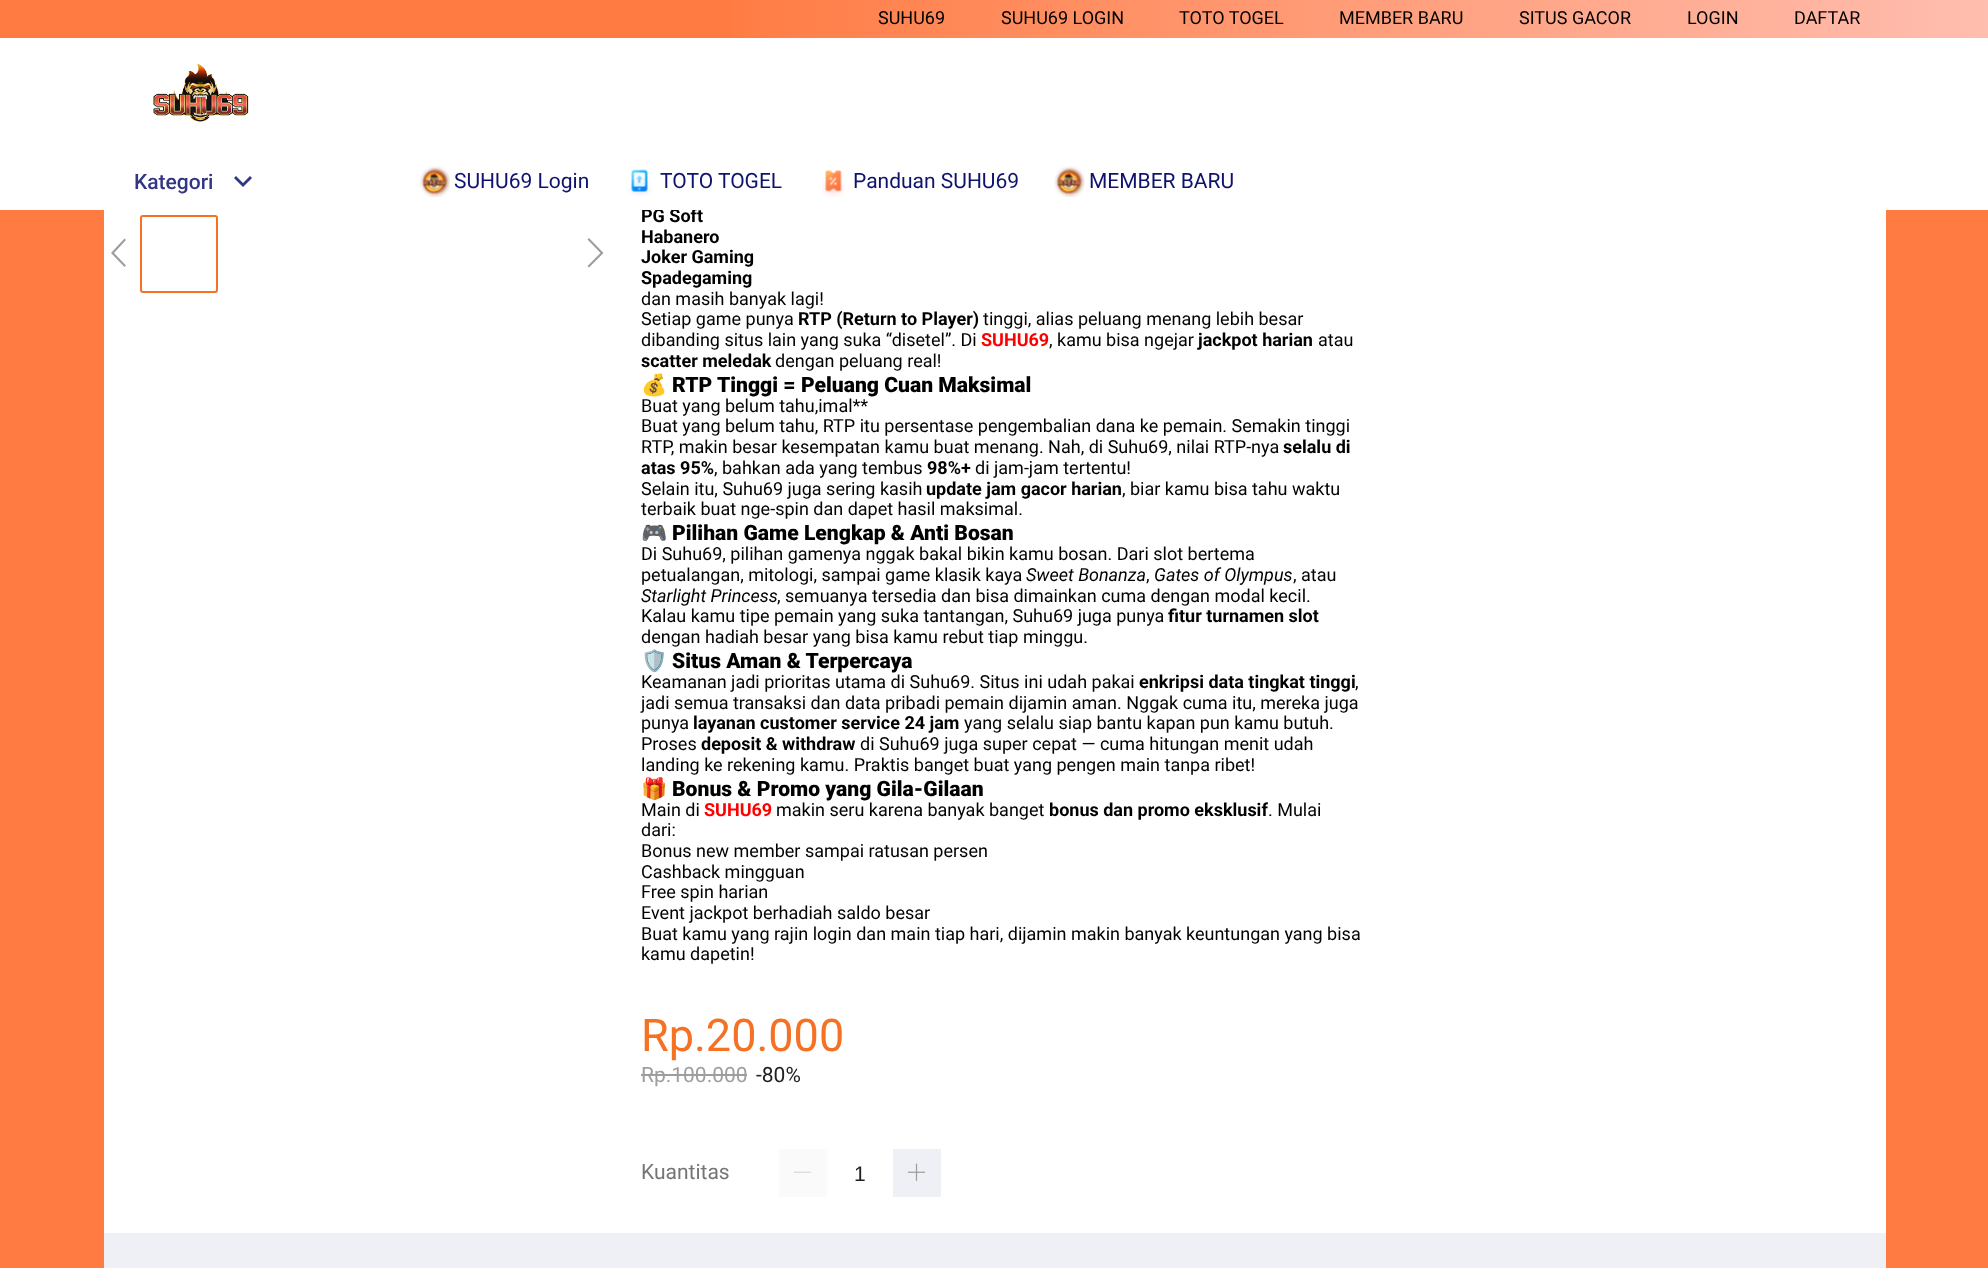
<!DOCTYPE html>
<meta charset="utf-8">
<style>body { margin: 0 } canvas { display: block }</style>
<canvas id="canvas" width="1988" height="1268"></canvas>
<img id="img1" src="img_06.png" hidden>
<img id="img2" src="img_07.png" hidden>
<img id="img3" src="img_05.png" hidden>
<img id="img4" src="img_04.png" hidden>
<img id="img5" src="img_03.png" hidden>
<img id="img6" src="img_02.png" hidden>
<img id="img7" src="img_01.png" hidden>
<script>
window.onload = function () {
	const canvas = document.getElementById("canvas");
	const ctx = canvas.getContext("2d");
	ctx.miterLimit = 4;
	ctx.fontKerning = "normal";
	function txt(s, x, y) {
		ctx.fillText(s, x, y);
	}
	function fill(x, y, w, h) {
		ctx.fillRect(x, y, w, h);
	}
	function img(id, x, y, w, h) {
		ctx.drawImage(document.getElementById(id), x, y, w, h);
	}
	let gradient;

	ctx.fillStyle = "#FF7B42";
	fill(0, 0, 1988, 1268);
	gradient = ctx.createLinearGradient(0, 21, 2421, 16);
	gradient.addColorStop(0.29, "#FF7B42");
	gradient.addColorStop(1, "#FFD4D4");
	ctx.fillStyle = gradient;
	fill(732, 0, 1256, 38);
	ctx.fillStyle = "#EFF0F5";
	fill(104, 1233, 1782, 35);
	ctx.fillStyle = "#FFFFFF";
	fill(104, 210, 1782, 1023);
	ctx.fillStyle = "#9E9E9E";
	ctx.beginPath();
	ctx.moveTo(126, 265.5);
	ctx.lineTo(114, 253);
	ctx.lineTo(126, 240);
	ctx.lineTo(124.5, 238.5);
	ctx.lineTo(111, 253);
	ctx.lineTo(124.5, 267);
	ctx.closePath();
	ctx.fill();
	ctx.beginPath();
	ctx.roundRect(141, 216, 76, 76, 2);
	ctx.strokeStyle = "#F57224";
	ctx.lineWidth = 2;
	ctx.stroke();
	ctx.beginPath();
	ctx.moveTo(589, 267.5);
	ctx.lineTo(587.5, 266);
	ctx.lineTo(600.5, 253);
	ctx.lineTo(587.5, 239.5);
	ctx.lineTo(589, 238);
	ctx.lineTo(603.5, 253);
	ctx.closePath();
	ctx.fill();
	fill(641, 1074, 106, 2);
	ctx.fillStyle = "#FAFAFA";
	fill(779, 1149, 48, 48);
	img("img1", 794, 1171, 17, 2);
	ctx.fillStyle = "#EFF0F5";
	fill(893, 1149, 48, 48);
	img("img2", 907, 1163, 19, 18);
	ctx.font = "18px Roboto";
	ctx.fillStyle = "#000000";
	txt("SUHU69", 878, 24);
	txt("SUHU69 LOGIN", 1001, 24);
	txt("TOTO TOGEL", 1179, 24);
	txt("MEMBER BARU", 1339, 24);
	txt("SITUS GACOR", 1519, 24);
	txt("LOGIN", 1687, 24);
	txt("DAFTAR", 1794, 24);
	ctx.font = "bold 18px Roboto";
	txt("PG Soft", 641, 222);
	ctx.fillStyle = "#FFFFFF";
	fill(0, 38, 1988, 172);
	img("img3", 1054, 166, 31, 31);
	img("img4", 822, 170, 23, 27);
	img("img5", 629, 169, 23, 27);
	img("img6", 420, 166, 30, 31);
	ctx.fillStyle = "#333683";
	ctx.beginPath();
	ctx.moveTo(250, 176);
	ctx.lineTo(252, 178);
	ctx.lineTo(243, 187);
	ctx.lineTo(234, 178);
	ctx.lineTo(236, 176);
	ctx.lineTo(243, 183);
	ctx.closePath();
	ctx.fill();
	ctx.font = "500 21px Roboto";
	txt("Kategori", 134, 189);
	ctx.font = "21px Roboto";
	ctx.fillStyle = "#0F136D";
	txt("MEMBER BARU", 1089, 188);
	txt("Panduan SUHU69", 853, 188);
	txt("TOTO TOGEL", 660, 188);
	txt("SUHU69 Login", 454, 188);
	img("img7", 153, 63, 96, 59);
	ctx.font = "bold 18px Roboto";
	ctx.fillStyle = "#000000";
	txt("Habanero", 641, 243);
	txt("Joker Gaming", 641, 263);
	txt("Spadegaming", 641, 284);
	ctx.font = "18px Roboto";
	txt("dan masih banyak lagi!", 641, 305);
	txt("Setiap game punya", 641, 325);
	ctx.font = "bold 18px Roboto";
	txt("RTP (Return to Player)", 798, 325);
	ctx.font = "18px Roboto";
	txt("tinggi, alias peluang menang lebih besar", 983, 325);
	txt("dibanding situs lain yang suka “disetel”. Di", 641, 346);
	ctx.font = "bold 18px Roboto";
	ctx.fillStyle = "#FF0000";
	txt("SUHU69", 981, 346);
	ctx.font = "18px Roboto";
	ctx.fillStyle = "#000000";
	txt(", kamu bisa ngejar", 1049, 346);
	ctx.font = "bold 18px Roboto";
	txt("jackpot harian", 1198, 346);
	ctx.font = "18px Roboto";
	txt("atau", 1318, 346);
	ctx.font = "bold 18px Roboto";
	txt("scatter meledak", 641, 367);
	ctx.font = "18px Roboto";
	txt("dengan peluang real!", 775, 367);
	ctx.font = "bold 21.1px Noto Color Emoji";
	txt("💰", 641, 392);
	ctx.font = "900 21.1px Roboto";
	txt("RTP Tinggi = Peluang Cuan Maksimal", 672, 392);
	ctx.font = "18px Roboto";
	txt("Buat yang belum tahu,imal**", 641, 412);
	txt("Buat yang belum tahu, RTP itu persentase pengembalian dana ke pemain. Semakin tinggi", 641, 432);
	txt("RTP, makin besar kesempatan kamu buat menang. Nah, di Suhu69, nilai RTP-nya", 641, 453);
	ctx.font = "bold 18px Roboto";
	txt("selalu di", 1283, 453);
	txt("atas 95%", 641, 474);
	ctx.font = "18px Roboto";
	txt(", bahkan ada yang tembus", 714, 474);
	ctx.font = "bold 18px Roboto";
	txt("98%+", 927, 474);
	ctx.font = "18px Roboto";
	txt("di jam-jam tertentu!", 975, 474);
	txt("Selain itu, Suhu69 juga sering kasih", 641, 495);
	ctx.font = "bold 18px Roboto";
	txt("update jam gacor harian", 926, 495);
	ctx.font = "18px Roboto";
	txt(", biar kamu bisa tahu waktu", 1122, 495);
	txt("terbaik buat nge-spin dan dapet hasil maksimal.", 641, 515);
	ctx.font = "bold 21.1px Noto Color Emoji";
	txt("🎮", 641, 540);
	ctx.font = "900 21.1px Roboto";
	txt("Pilihan Game Lengkap & Anti Bosan", 672, 540);
	ctx.font = "18px Roboto";
	txt("Di Suhu69, pilihan gamenya nggak bakal bikin kamu bosan. Dari slot bertema", 641, 560);
	txt("petualangan, mitologi, sampai game klasik kaya", 641, 581);
	ctx.font = "italic 18px Roboto";
	txt("Sweet Bonanza", 1026, 581);
	ctx.font = "18px Roboto";
	txt(",", 1146, 581);
	ctx.font = "italic 18px Roboto";
	txt("Gates of Olympus", 1154, 581);
	ctx.font = "18px Roboto";
	txt(", atau", 1293, 581);
	ctx.font = "italic 18px Roboto";
	txt("Starlight Princess", 641, 602);
	ctx.font = "18px Roboto";
	txt(", semuanya tersedia dan bisa dimainkan cuma dengan modal kecil.", 777, 602);
	txt("Kalau kamu tipe pemain yang suka tantangan, Suhu69 juga punya", 641, 622);
	ctx.font = "bold 18px Roboto";
	txt("fitur turnamen slot", 1168, 622);
	ctx.font = "18px Roboto";
	txt("dengan hadiah besar yang bisa kamu rebut tiap minggu.", 641, 643);
	ctx.font = "bold 21.1px Noto Color Emoji";
	txt("🛡️", 641, 668);
	ctx.font = "900 21.1px Roboto";
	txt("Situs Aman & Terpercaya", 672, 668);
	ctx.font = "18px Roboto";
	txt("Keamanan jadi prioritas utama di Suhu69. Situs ini udah pakai", 641, 688);
	ctx.font = "bold 18px Roboto";
	txt("enkripsi data tingkat tinggi", 1139, 688);
	ctx.font = "18px Roboto";
	txt(",", 1355, 688);
	txt("jadi semua transaksi dan data pribadi pemain dijamin aman. Nggak cuma itu, mereka juga", 641, 709);
	txt("punya", 641, 729);
	ctx.font = "bold 18px Roboto";
	txt("layanan customer service 24 jam", 693, 729);
	ctx.font = "18px Roboto";
	txt("yang selalu siap bantu kapan pun kamu butuh.", 964, 729);
	txt("Proses", 641, 750);
	ctx.font = "bold 18px Roboto";
	txt("deposit & withdraw", 701, 750);
	ctx.font = "18px Roboto";
	txt("di Suhu69 juga super cepat — cuma hitungan menit udah", 860, 750);
	txt("landing ke rekening kamu. Praktis banget buat yang pengen main tanpa ribet!", 641, 771);
	ctx.font = "bold 21.1px Noto Color Emoji";
	txt("🎁", 641, 796);
	ctx.font = "900 21.1px Roboto";
	txt("Bonus & Promo yang Gila-Gilaan", 672, 796);
	ctx.font = "18px Roboto";
	txt("Main di", 641, 816);
	ctx.font = "bold 18px Roboto";
	ctx.fillStyle = "#FF0000";
	txt("SUHU69", 704, 816);
	ctx.font = "18px Roboto";
	ctx.fillStyle = "#000000";
	txt("makin seru karena banyak banget", 776, 816);
	ctx.font = "bold 18px Roboto";
	txt("bonus dan promo eksklusif", 1049, 816);
	ctx.font = "18px Roboto";
	txt(". Mulai", 1268, 816);
	txt("dari:", 641, 836);
	txt("Bonus new member sampai ratusan persen", 641, 857);
	txt("Cashback mingguan", 641, 878);
	txt("Free spin harian", 641, 898);
	txt("Event jackpot berhadiah saldo besar", 641, 919);
	txt("Buat kamu yang rajin login dan main tiap hari, dijamin makin banyak keuntungan yang bisa", 641, 940);
	txt("kamu dapetin!", 641, 960);
	ctx.font = "45px Roboto";
	ctx.fillStyle = "#F57224";
	txt("Rp.20.000", 641, 1051);
	ctx.font = "21px Roboto";
	ctx.fillStyle = "#9E9E9E";
	txt("Rp.100.000", 641, 1082);
	ctx.fillStyle = "#212121";
	txt("-80%", 756, 1082);
	ctx.fillStyle = "#757575";
	txt("Kuantitas", 641, 1179);
	ctx.font = "21px Liberation Sans";
	ctx.fillStyle = "#212121";
	txt("1", 854, 1181);
};
</script>
